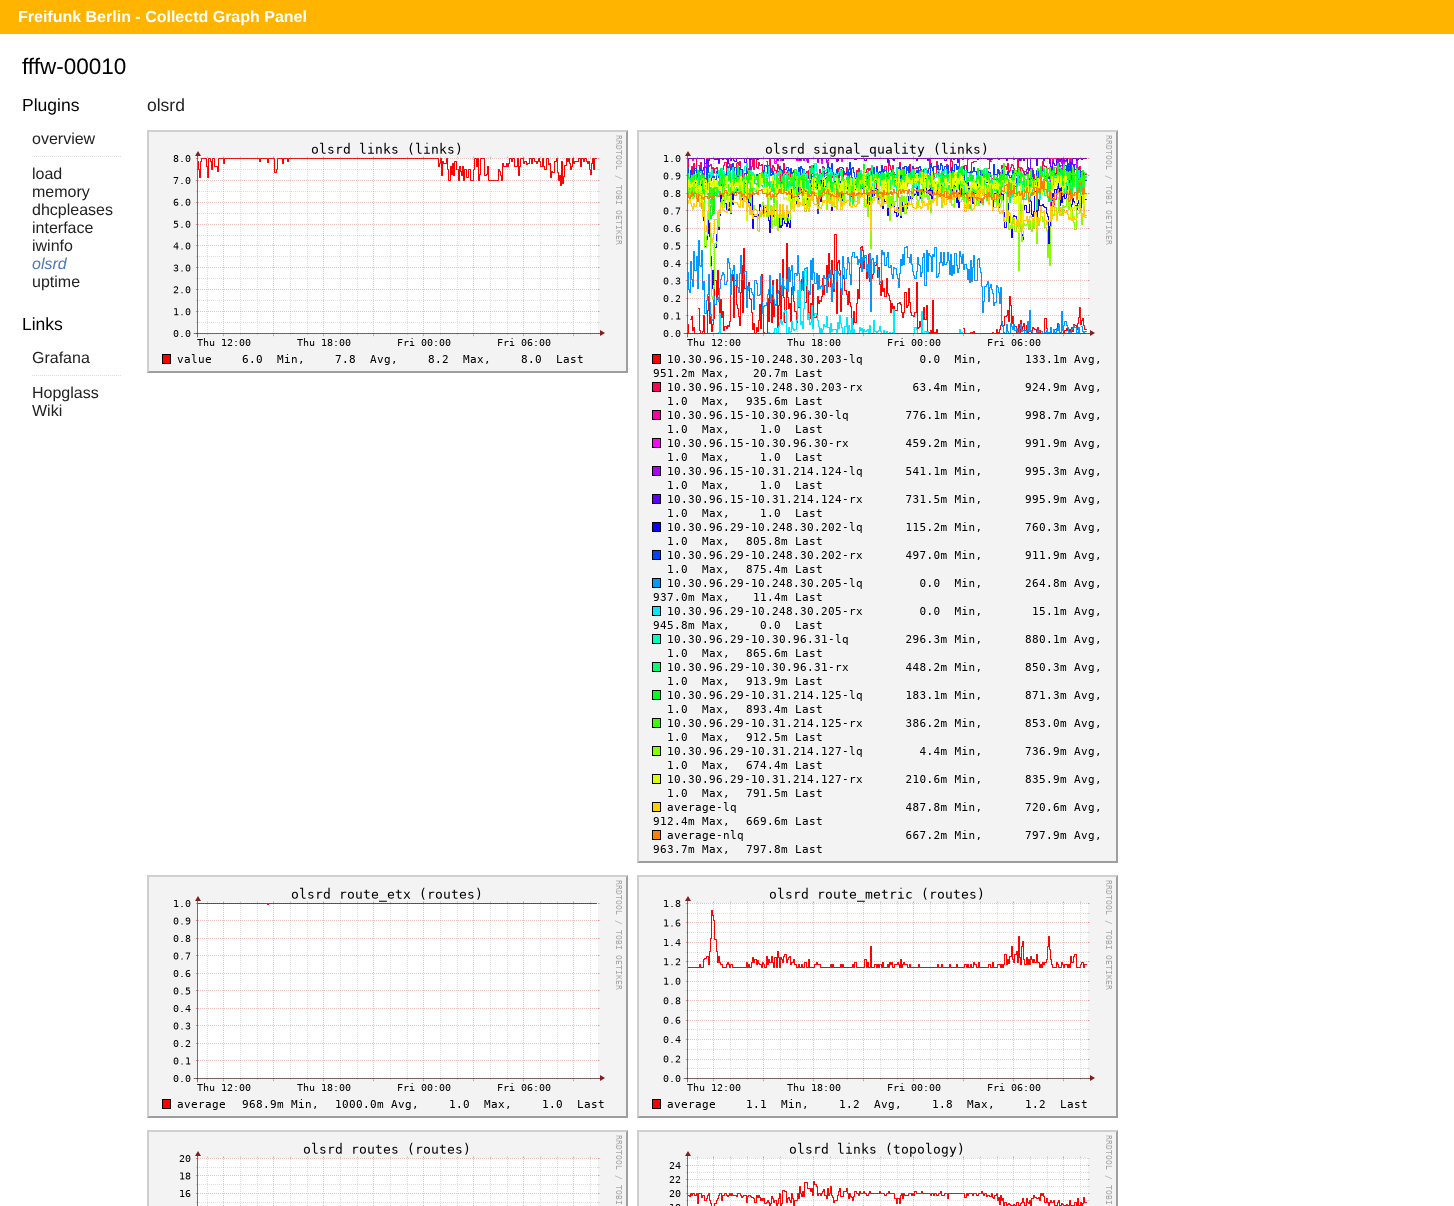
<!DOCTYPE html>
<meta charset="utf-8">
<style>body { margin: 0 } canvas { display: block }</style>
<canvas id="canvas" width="1454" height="1206"></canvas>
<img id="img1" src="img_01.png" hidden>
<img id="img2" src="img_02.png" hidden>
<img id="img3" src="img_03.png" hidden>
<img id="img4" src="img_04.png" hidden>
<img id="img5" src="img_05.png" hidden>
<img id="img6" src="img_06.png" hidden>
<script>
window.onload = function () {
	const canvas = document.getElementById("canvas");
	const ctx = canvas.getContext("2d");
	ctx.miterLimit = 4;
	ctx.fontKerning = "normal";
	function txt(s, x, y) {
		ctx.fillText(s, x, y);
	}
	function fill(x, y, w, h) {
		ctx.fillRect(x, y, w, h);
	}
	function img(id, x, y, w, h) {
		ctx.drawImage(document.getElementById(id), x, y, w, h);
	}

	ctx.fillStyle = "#FFFFFF";
	fill(0, 0, 1454, 1206);
	ctx.fillStyle = "#FFB400";
	fill(0, 0, 1454, 34);
	ctx.beginPath();
	ctx.moveTo(32, 156.5);
	ctx.lineTo(122, 156.5);
	ctx.strokeStyle = "#DDDDDD";
	ctx.setLineDash([1, 1]);
	ctx.stroke();
	ctx.beginPath();
	ctx.moveTo(32, 375.5);
	ctx.lineTo(122, 375.5);
	ctx.stroke();
	img("img1", 147, 130, 481, 243);
	img("img2", 637, 130, 481, 733);
	img("img3", 147, 875, 481, 243);
	img("img4", 637, 875, 481, 243);
	img("img5", 147, 1130, 481, 76);
	img("img6", 637, 1130, 481, 76);
	ctx.font = "bold 16px Liberation Sans";
	ctx.fillStyle = "#FFFFFF";
	txt("Freifunk Berlin - Collectd Graph Panel", 18, 22);
	ctx.font = "22.5px Liberation Sans";
	ctx.fillStyle = "#000000";
	txt("fffw-00010", 22, 74);
	ctx.font = "17.5px Liberation Sans";
	txt("Plugins", 22, 111);
	ctx.font = "16px Liberation Sans";
	ctx.fillStyle = "#222222";
	txt("overview", 32, 144);
	txt("load", 32, 179);
	txt("memory", 32, 197);
	txt("dhcpleases", 32, 215);
	txt("interface", 32, 233);
	txt("iwinfo", 32, 251);
	ctx.font = "italic 16px Liberation Sans";
	ctx.fillStyle = "#4D79B5";
	txt("olsrd", 32, 269);
	ctx.font = "16px Liberation Sans";
	ctx.fillStyle = "#222222";
	txt("uptime", 32, 287);
	ctx.font = "17.5px Liberation Sans";
	ctx.fillStyle = "#000000";
	txt("Links", 22, 330);
	ctx.font = "16px Liberation Sans";
	ctx.fillStyle = "#222222";
	txt("Grafana", 32, 363);
	txt("Hopglass", 32, 398);
	txt("Wiki", 32, 416);
	ctx.font = "17.5px Liberation Sans";
	txt("olsrd", 147, 111);
};
</script>
